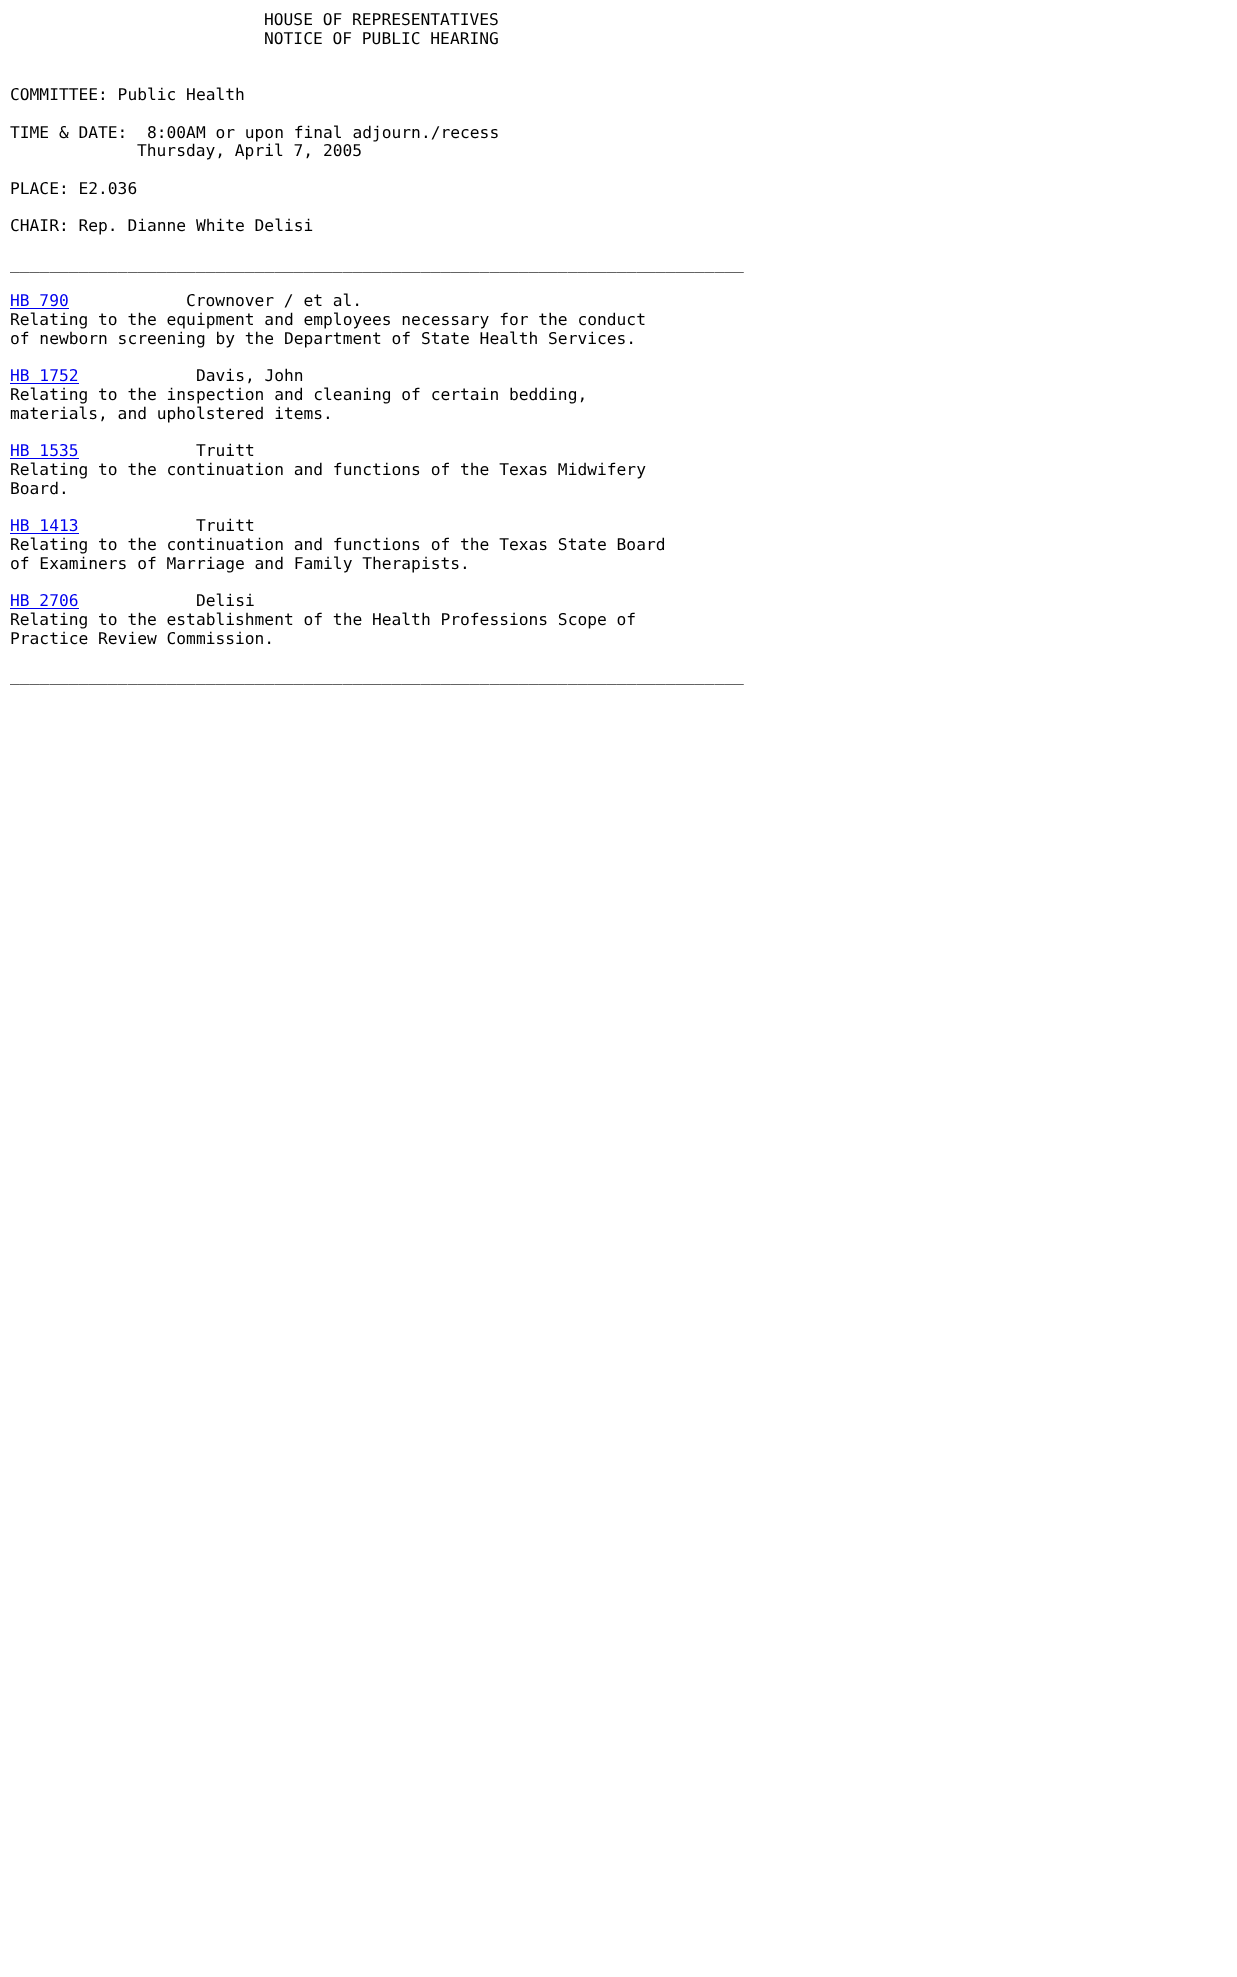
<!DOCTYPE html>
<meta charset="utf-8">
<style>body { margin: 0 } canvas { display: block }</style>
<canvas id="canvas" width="1237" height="1977"></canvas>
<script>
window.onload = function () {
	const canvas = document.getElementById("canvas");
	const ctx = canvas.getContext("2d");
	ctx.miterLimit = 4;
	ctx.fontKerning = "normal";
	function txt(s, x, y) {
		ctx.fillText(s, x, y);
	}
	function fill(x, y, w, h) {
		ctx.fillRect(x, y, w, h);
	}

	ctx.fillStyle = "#FFFFFF";
	fill(0, 0, 1237, 1977);
	ctx.fillStyle = "#0000EE";
	fill(10, 308, 59, 1);
	fill(10, 383, 69, 1);
	fill(10, 458, 69, 1);
	fill(10, 533, 69, 1);
	fill(10, 608, 69, 1);
	ctx.font = "16.25px DejaVu Sans Mono";
	ctx.fillStyle = "#000000";
	txt("HOUSE OF REPRESENTATIVES", 264, 25);
	txt("NOTICE OF PUBLIC HEARING", 264, 44);
	txt("COMMITTEE: Public Health", 10, 100);
	txt("TIME & DATE:  8:00AM or upon final adjourn./recess", 10, 138);
	txt("Thursday, April 7, 2005", 137, 156);
	txt("PLACE: E2.036", 10, 194);
	txt("CHAIR: Rep. Dianne White Delisi", 10, 231);
	txt("___________________________________________________________________________", 10, 269);
	ctx.fillStyle = "#0000EE";
	txt("HB 790", 10, 306);
	ctx.fillStyle = "#000000";
	txt("Crownover / et al.", 186, 306);
	txt("Relating to the equipment and employees necessary for the conduct", 10, 325);
	txt("of newborn screening by the Department of State Health Services.", 10, 344);
	ctx.fillStyle = "#0000EE";
	txt("HB 1752", 10, 381);
	ctx.fillStyle = "#000000";
	txt("Davis, John", 196, 381);
	txt("Relating to the inspection and cleaning of certain bedding,", 10, 400);
	txt("materials, and upholstered items.", 10, 419);
	ctx.fillStyle = "#0000EE";
	txt("HB 1535", 10, 456);
	ctx.fillStyle = "#000000";
	txt("Truitt", 196, 456);
	txt("Relating to the continuation and functions of the Texas Midwifery", 10, 475);
	txt("Board.", 10, 494);
	ctx.fillStyle = "#0000EE";
	txt("HB 1413", 10, 531);
	ctx.fillStyle = "#000000";
	txt("Truitt", 196, 531);
	txt("Relating to the continuation and functions of the Texas State Board", 10, 550);
	txt("of Examiners of Marriage and Family Therapists.", 10, 569);
	ctx.fillStyle = "#0000EE";
	txt("HB 2706", 10, 606);
	ctx.fillStyle = "#000000";
	txt("Delisi", 196, 606);
	txt("Relating to the establishment of the Health Professions Scope of", 10, 625);
	txt("Practice Review Commission.", 10, 644);
	txt("___________________________________________________________________________", 10, 681);
};
</script>
